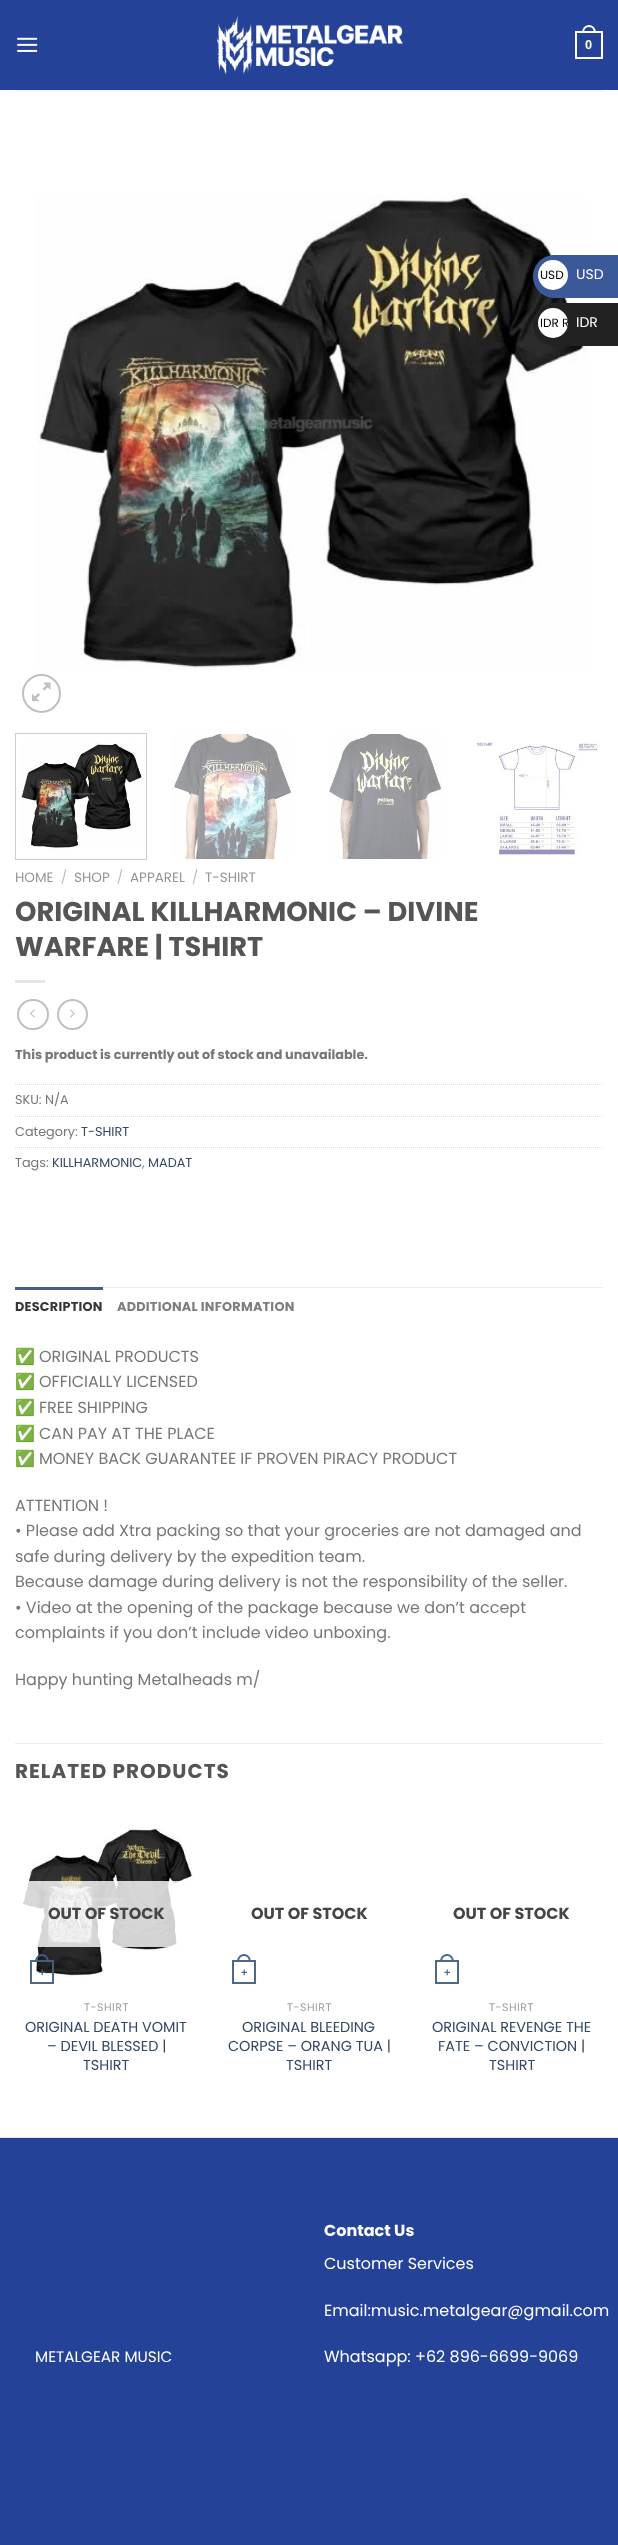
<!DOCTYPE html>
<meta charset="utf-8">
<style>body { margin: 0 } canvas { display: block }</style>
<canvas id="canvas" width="618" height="2545"></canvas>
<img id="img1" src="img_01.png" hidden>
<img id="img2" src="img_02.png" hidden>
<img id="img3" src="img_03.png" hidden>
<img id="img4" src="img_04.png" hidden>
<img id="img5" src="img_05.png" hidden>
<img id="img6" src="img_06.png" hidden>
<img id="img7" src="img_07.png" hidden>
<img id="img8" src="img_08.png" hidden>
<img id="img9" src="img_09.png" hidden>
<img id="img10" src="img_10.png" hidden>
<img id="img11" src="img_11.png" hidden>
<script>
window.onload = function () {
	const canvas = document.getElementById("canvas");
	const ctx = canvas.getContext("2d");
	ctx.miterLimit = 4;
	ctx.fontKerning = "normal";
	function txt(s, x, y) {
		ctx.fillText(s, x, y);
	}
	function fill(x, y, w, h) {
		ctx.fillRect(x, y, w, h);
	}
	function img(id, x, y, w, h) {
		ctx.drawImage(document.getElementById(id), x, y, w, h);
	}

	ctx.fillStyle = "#FFFFFF";
	fill(0, 0, 618, 2545);
	ctx.fillStyle = "#244297";
	fill(0, 0, 618, 90);
	img("img1", 17, 37, 21, 15);
	img("img2", 216, 16, 187, 59);
	ctx.strokeStyle = "#FFFFFF";
	ctx.lineWidth = 2;
	ctx.strokeRect(576, 32, 26, 26);
	ctx.fillStyle = "#FFFFFF";
	ctx.beginPath();
	ctx.moveTo(589, 25);
	ctx.bezierCurveTo(593.5, 25, 596, 29, 596, 33);
	ctx.lineTo(582, 33);
	ctx.bezierCurveTo(582, 29, 584.5, 25, 589, 25);
	ctx.closePath();
	ctx.moveTo(589, 27);
	ctx.bezierCurveTo(592.5, 27, 594, 30, 594, 33);
	ctx.lineTo(584, 33);
	ctx.bezierCurveTo(584, 30, 585.5, 27, 589, 27);
	ctx.closePath();
	ctx.fill("evenodd");
	ctx.fillStyle = "#F1F1F1";
	fill(15, 90, 588, 1);
	img("img3", 36, 195, 551, 475);
	ctx.beginPath();
	ctx.arc(41.5, 693.5, 18.5, 0, Math.PI * 2);
	ctx.strokeStyle = "#C0C0C0";
	ctx.stroke();
	img("img4", 32, 682, 19, 20);
	ctx.strokeStyle = "#CCCCCC";
	ctx.lineWidth = 1;
	ctx.strokeRect(15.5, 733.5, 131, 126);
	img("img5", 20, 742, 122, 107);
	img("img6", 172, 734, 119, 125);
	img("img7", 329, 734, 113, 125);
	img("img8", 477, 742, 121, 114);
	ctx.fillStyle = "#E6E6E6";
	fill(15, 980, 30, 3);
	ctx.beginPath();
	ctx.roundRect(18, 1000, 30, 29, 14.5);
	ctx.strokeStyle = "#C0C0C0";
	ctx.lineWidth = 2;
	ctx.stroke();
	img("img9", 30, 1009, 5, 9);
	ctx.beginPath();
	ctx.arc(72.5, 1014.5, 14.5, 0, Math.PI * 2);
	ctx.stroke();
	img("img10", 70, 1009, 5, 9);
	ctx.beginPath();
	ctx.moveTo(15, 1084.5);
	ctx.lineTo(603, 1084.5);
	ctx.strokeStyle = "#DDDDDD";
	ctx.lineWidth = 1;
	ctx.setLineDash([1, 1]);
	ctx.stroke();
	ctx.beginPath();
	ctx.moveTo(15, 1116.5);
	ctx.lineTo(603, 1116.5);
	ctx.stroke();
	ctx.beginPath();
	ctx.moveTo(15, 1147.5);
	ctx.lineTo(603, 1147.5);
	ctx.stroke();
	ctx.fillStyle = "#ECECEC";
	fill(103, 1287, 500, 1);
	ctx.fillStyle = "#446084";
	fill(15, 1287, 88, 3);
	ctx.fillStyle = "#ECECEC";
	fill(15, 1743, 588, 1);
	img("img11", 21, 1826, 172, 151);
	ctx.fillStyle = "rgba(255, 255, 255, 0.81)";
	fill(21, 1881, 163, 66);
	ctx.strokeStyle = "rgba(68, 96, 132, 0.95)";
	ctx.lineWidth = 2;
	ctx.setLineDash([]);
	ctx.strokeRect(31, 1961, 22, 22);
	ctx.fillStyle = "rgba(68, 96, 132, 0.95)";
	ctx.beginPath();
	ctx.moveTo(42, 1954);
	ctx.bezierCurveTo(46.5, 1954, 49, 1958, 49, 1962);
	ctx.lineTo(35, 1962);
	ctx.bezierCurveTo(35, 1958, 37.5, 1954, 42, 1954);
	ctx.closePath();
	ctx.moveTo(42, 1956);
	ctx.bezierCurveTo(45.5, 1956, 47, 1959, 47, 1962);
	ctx.lineTo(37, 1962);
	ctx.bezierCurveTo(37, 1959, 38.5, 1956, 42, 1956);
	ctx.closePath();
	ctx.fill("evenodd");
	ctx.strokeStyle = "#4D688A";
	ctx.strokeRect(233, 1961, 22, 22);
	ctx.fillStyle = "#4D688A";
	ctx.beginPath();
	ctx.moveTo(244, 1954);
	ctx.bezierCurveTo(248.5, 1954, 251, 1958, 251, 1962);
	ctx.lineTo(237, 1962);
	ctx.bezierCurveTo(237, 1958, 239.5, 1954, 244, 1954);
	ctx.closePath();
	ctx.moveTo(244, 1956);
	ctx.bezierCurveTo(247.5, 1956, 249, 1959, 249, 1962);
	ctx.lineTo(239, 1962);
	ctx.bezierCurveTo(239, 1959, 240.5, 1956, 244, 1956);
	ctx.closePath();
	ctx.fill("evenodd");
	ctx.strokeRect(436, 1961, 22, 22);
	ctx.beginPath();
	ctx.moveTo(447, 1954);
	ctx.bezierCurveTo(451.5, 1954, 454, 1958, 454, 1962);
	ctx.lineTo(440, 1962);
	ctx.bezierCurveTo(440, 1958, 442.5, 1954, 447, 1954);
	ctx.closePath();
	ctx.moveTo(447, 1956);
	ctx.bezierCurveTo(450.5, 1956, 452, 1959, 452, 1962);
	ctx.lineTo(442, 1962);
	ctx.bezierCurveTo(442, 1959, 443.5, 1956, 447, 1956);
	ctx.closePath();
	ctx.fill("evenodd");
	ctx.fillStyle = "#E6E6E6";
	fill(0, 2137, 618, 1);
	ctx.fillStyle = "#244297";
	fill(0, 2138, 618, 407);
	ctx.fillStyle = "#3B5998";
	ctx.beginPath();
	ctx.moveTo(554.5, 255);
	ctx.lineTo(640, 255);
	ctx.lineTo(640, 298);
	ctx.lineTo(554.5, 298);
	ctx.bezierCurveTo(542.5, 298, 533, 288.5, 533, 276.5);
	ctx.bezierCurveTo(533, 264.5, 542.5, 255, 554.5, 255);
	ctx.closePath();
	ctx.fill();
	ctx.fillStyle = "#FFFFFF";
	ctx.beginPath();
	ctx.arc(553, 275, 15, 0, Math.PI * 2);
	ctx.fill();
	ctx.fillStyle = "#222222";
	ctx.beginPath();
	ctx.moveTo(554.5, 303);
	ctx.lineTo(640, 303);
	ctx.lineTo(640, 346);
	ctx.lineTo(554.5, 346);
	ctx.bezierCurveTo(542.5, 346, 533, 336.5, 533, 324.5);
	ctx.bezierCurveTo(533, 312.5, 542.5, 303, 554.5, 303);
	ctx.closePath();
	ctx.fill();
	ctx.fillStyle = "#FFFFFF";
	ctx.beginPath();
	ctx.arc(553, 323, 15, 0, Math.PI * 2);
	ctx.fill();
	ctx.font = "bold 12.8px Liberation Sans";
	txt("0", 585, 49);
	ctx.font = "13.5px Poppins";
	ctx.fillStyle = "#949494";
	txt("HOME", 15, 882);
	ctx.font = "300 13.5px Poppins";
	ctx.fillStyle = "#B2B2B2";
	txt("/", 61, 882);
	ctx.font = "13.5px Poppins";
	ctx.fillStyle = "#949494";
	txt("SHOP", 74, 882);
	ctx.font = "300 13.5px Poppins";
	ctx.fillStyle = "#B2B2B2";
	txt("/", 117, 882);
	ctx.font = "13.5px Poppins";
	ctx.fillStyle = "#949494";
	txt("APPAREL", 130, 882);
	ctx.font = "300 13.5px Poppins";
	ctx.fillStyle = "#B2B2B2";
	txt("/", 192, 882);
	ctx.font = "13.5px Poppins";
	ctx.fillStyle = "#949494";
	txt("T-SHIRT", 205, 882);
	ctx.font = "bold 27.25px Poppins";
	ctx.fillStyle = "#555555";
	txt("ORIGINAL KILLHARMONIC – DIVINE", 15, 921);
	txt("WARFARE | TSHIRT", 15, 956);
	ctx.font = "bold 12.8px Poppins";
	ctx.fillStyle = "#777777";
	txt("This product is currently out of stock and unavailable.", 15, 1059);
	ctx.font = "12.8px Poppins";
	txt("SKU: N/A", 15, 1104);
	txt("Category:", 15, 1136);
	ctx.fillStyle = "#334862";
	txt("T-SHIRT", 81, 1136);
	ctx.fillStyle = "#777777";
	txt("Tags:", 15, 1167);
	ctx.fillStyle = "#334862";
	txt("KILLHARMONIC", 52, 1167);
	ctx.fillStyle = "#777777";
	txt(",", 142, 1167);
	ctx.fillStyle = "#334862";
	txt("MADAT", 148, 1167);
	ctx.letterSpacing = "0.25px";
	ctx.font = "bold 12.8px Poppins";
	ctx.fillStyle = "#363636";
	txt("DESCRIPTION", 15, 1311);
	ctx.fillStyle = "#7D7D7D";
	txt("ADDITIONAL INFORMATION", 117, 1311);
	ctx.letterSpacing = "0px";
	ctx.font = "16px Noto Color Emoji";
	ctx.fillStyle = "#777777";
	txt("✅", 15, 1362);
	ctx.font = "16px Poppins";
	txt("ORIGINAL PRODUCTS", 39, 1362);
	ctx.font = "16px Noto Color Emoji";
	txt("✅", 15, 1387);
	ctx.font = "16px Poppins";
	txt("OFFICIALLY LICENSED", 39, 1387);
	ctx.font = "16px Noto Color Emoji";
	txt("✅", 15, 1413);
	ctx.font = "16px Poppins";
	txt("FREE SHIPPING", 39, 1413);
	ctx.font = "16px Noto Color Emoji";
	txt("✅", 15, 1439);
	ctx.font = "16px Poppins";
	txt("CAN PAY AT THE PLACE", 39, 1439);
	ctx.font = "16px Noto Color Emoji";
	txt("✅", 15, 1464);
	ctx.font = "16px Poppins";
	txt("MONEY BACK GUARANTEE IF PROVEN PIRACY PRODUCT", 39, 1464);
	txt("ATTENTION !", 15, 1511);
	txt("• Please add Xtra packing so that your groceries are not damaged and", 15, 1536);
	txt("safe during delivery by the expedition team.", 15, 1562);
	txt("Because damage during delivery is not the responsibility of the seller.", 15, 1587);
	txt("• Video at the opening of the package because we don’t accept", 15, 1613);
	txt("complaints if you don’t include video unboxing.", 15, 1638);
	txt("Happy hunting Metalheads m/", 15, 1685);
	ctx.letterSpacing = "1px";
	ctx.font = "bold 20px Poppins";
	ctx.fillStyle = "#555555";
	txt("RELATED PRODUCTS", 15, 1778);
	ctx.letterSpacing = "0px";
	ctx.font = "bold 16px Poppins";
	ctx.fillStyle = "#454545";
	txt("OUT OF STOCK", 48, 1919);
	ctx.font = "bold 11px Liberation Sans";
	ctx.fillStyle = "#466183";
	txt("+", 39, 1976);
	ctx.letterSpacing = "0.5px";
	ctx.font = "11px Poppins";
	ctx.fillStyle = "#A0A0A0";
	txt("T-SHIRT", 84, 2011);
	ctx.letterSpacing = "0px";
	ctx.font = "14.4px Poppins";
	ctx.fillStyle = "#334862";
	txt("ORIGINAL DEATH VOMIT", 25, 2032);
	txt("– DEVIL BLESSED |", 47, 2051);
	txt("TSHIRT", 83, 2070);
	ctx.font = "bold 16px Poppins";
	ctx.fillStyle = "#454545";
	txt("OUT OF STOCK", 251, 1919);
	ctx.font = "bold 11px Liberation Sans";
	ctx.fillStyle = "#4D688A";
	txt("+", 241, 1976);
	ctx.letterSpacing = "0.5px";
	ctx.font = "11px Poppins";
	ctx.fillStyle = "#A0A0A0";
	txt("T-SHIRT", 287, 2011);
	ctx.letterSpacing = "0px";
	ctx.font = "14.4px Poppins";
	ctx.fillStyle = "#334862";
	txt("ORIGINAL BLEEDING", 242, 2032);
	txt("CORPSE – ORANG TUA |", 228, 2051);
	txt("TSHIRT", 286, 2070);
	ctx.font = "bold 16px Poppins";
	ctx.fillStyle = "#454545";
	txt("OUT OF STOCK", 453, 1919);
	ctx.font = "bold 11px Liberation Sans";
	ctx.fillStyle = "#4D688A";
	txt("+", 444, 1976);
	ctx.letterSpacing = "0.5px";
	ctx.font = "11px Poppins";
	ctx.fillStyle = "#A0A0A0";
	txt("T-SHIRT", 489, 2011);
	ctx.letterSpacing = "0px";
	ctx.font = "14.4px Poppins";
	ctx.fillStyle = "#334862";
	txt("ORIGINAL REVENGE THE", 432, 2032);
	txt("FATE – CONVICTION |", 438, 2051);
	txt("TSHIRT", 489, 2070);
	ctx.font = "15.25px Poppins";
	ctx.fillStyle = "#FFFFFF";
	txt("METALGEAR MUSIC", 35, 2362);
	ctx.font = "bold 16px Poppins";
	txt("Contact Us", 324, 2236);
	ctx.font = "16px Poppins";
	txt("Customer Services", 324, 2269);
	txt("Email:music.metalgear@gmail.com", 324, 2316);
	txt("Whatsapp: +62 896-6699-9069", 324, 2362);
	ctx.font = "12px Poppins";
	ctx.fillStyle = "#000000";
	txt("USD", 540, 279);
	ctx.font = "14px Poppins";
	ctx.fillStyle = "#FFFFFF";
	txt("USD", 576, 279);
	ctx.save();
	ctx.beginPath();
	ctx.roundRect(538, 308, 30, 30, 15);
	ctx.clip();
	ctx.font = "12px Poppins";
	ctx.fillStyle = "#000000";
	txt("IDR R", 540, 327);
	ctx.restore();
	txt("IDR", 576, 327);
};
</script>
